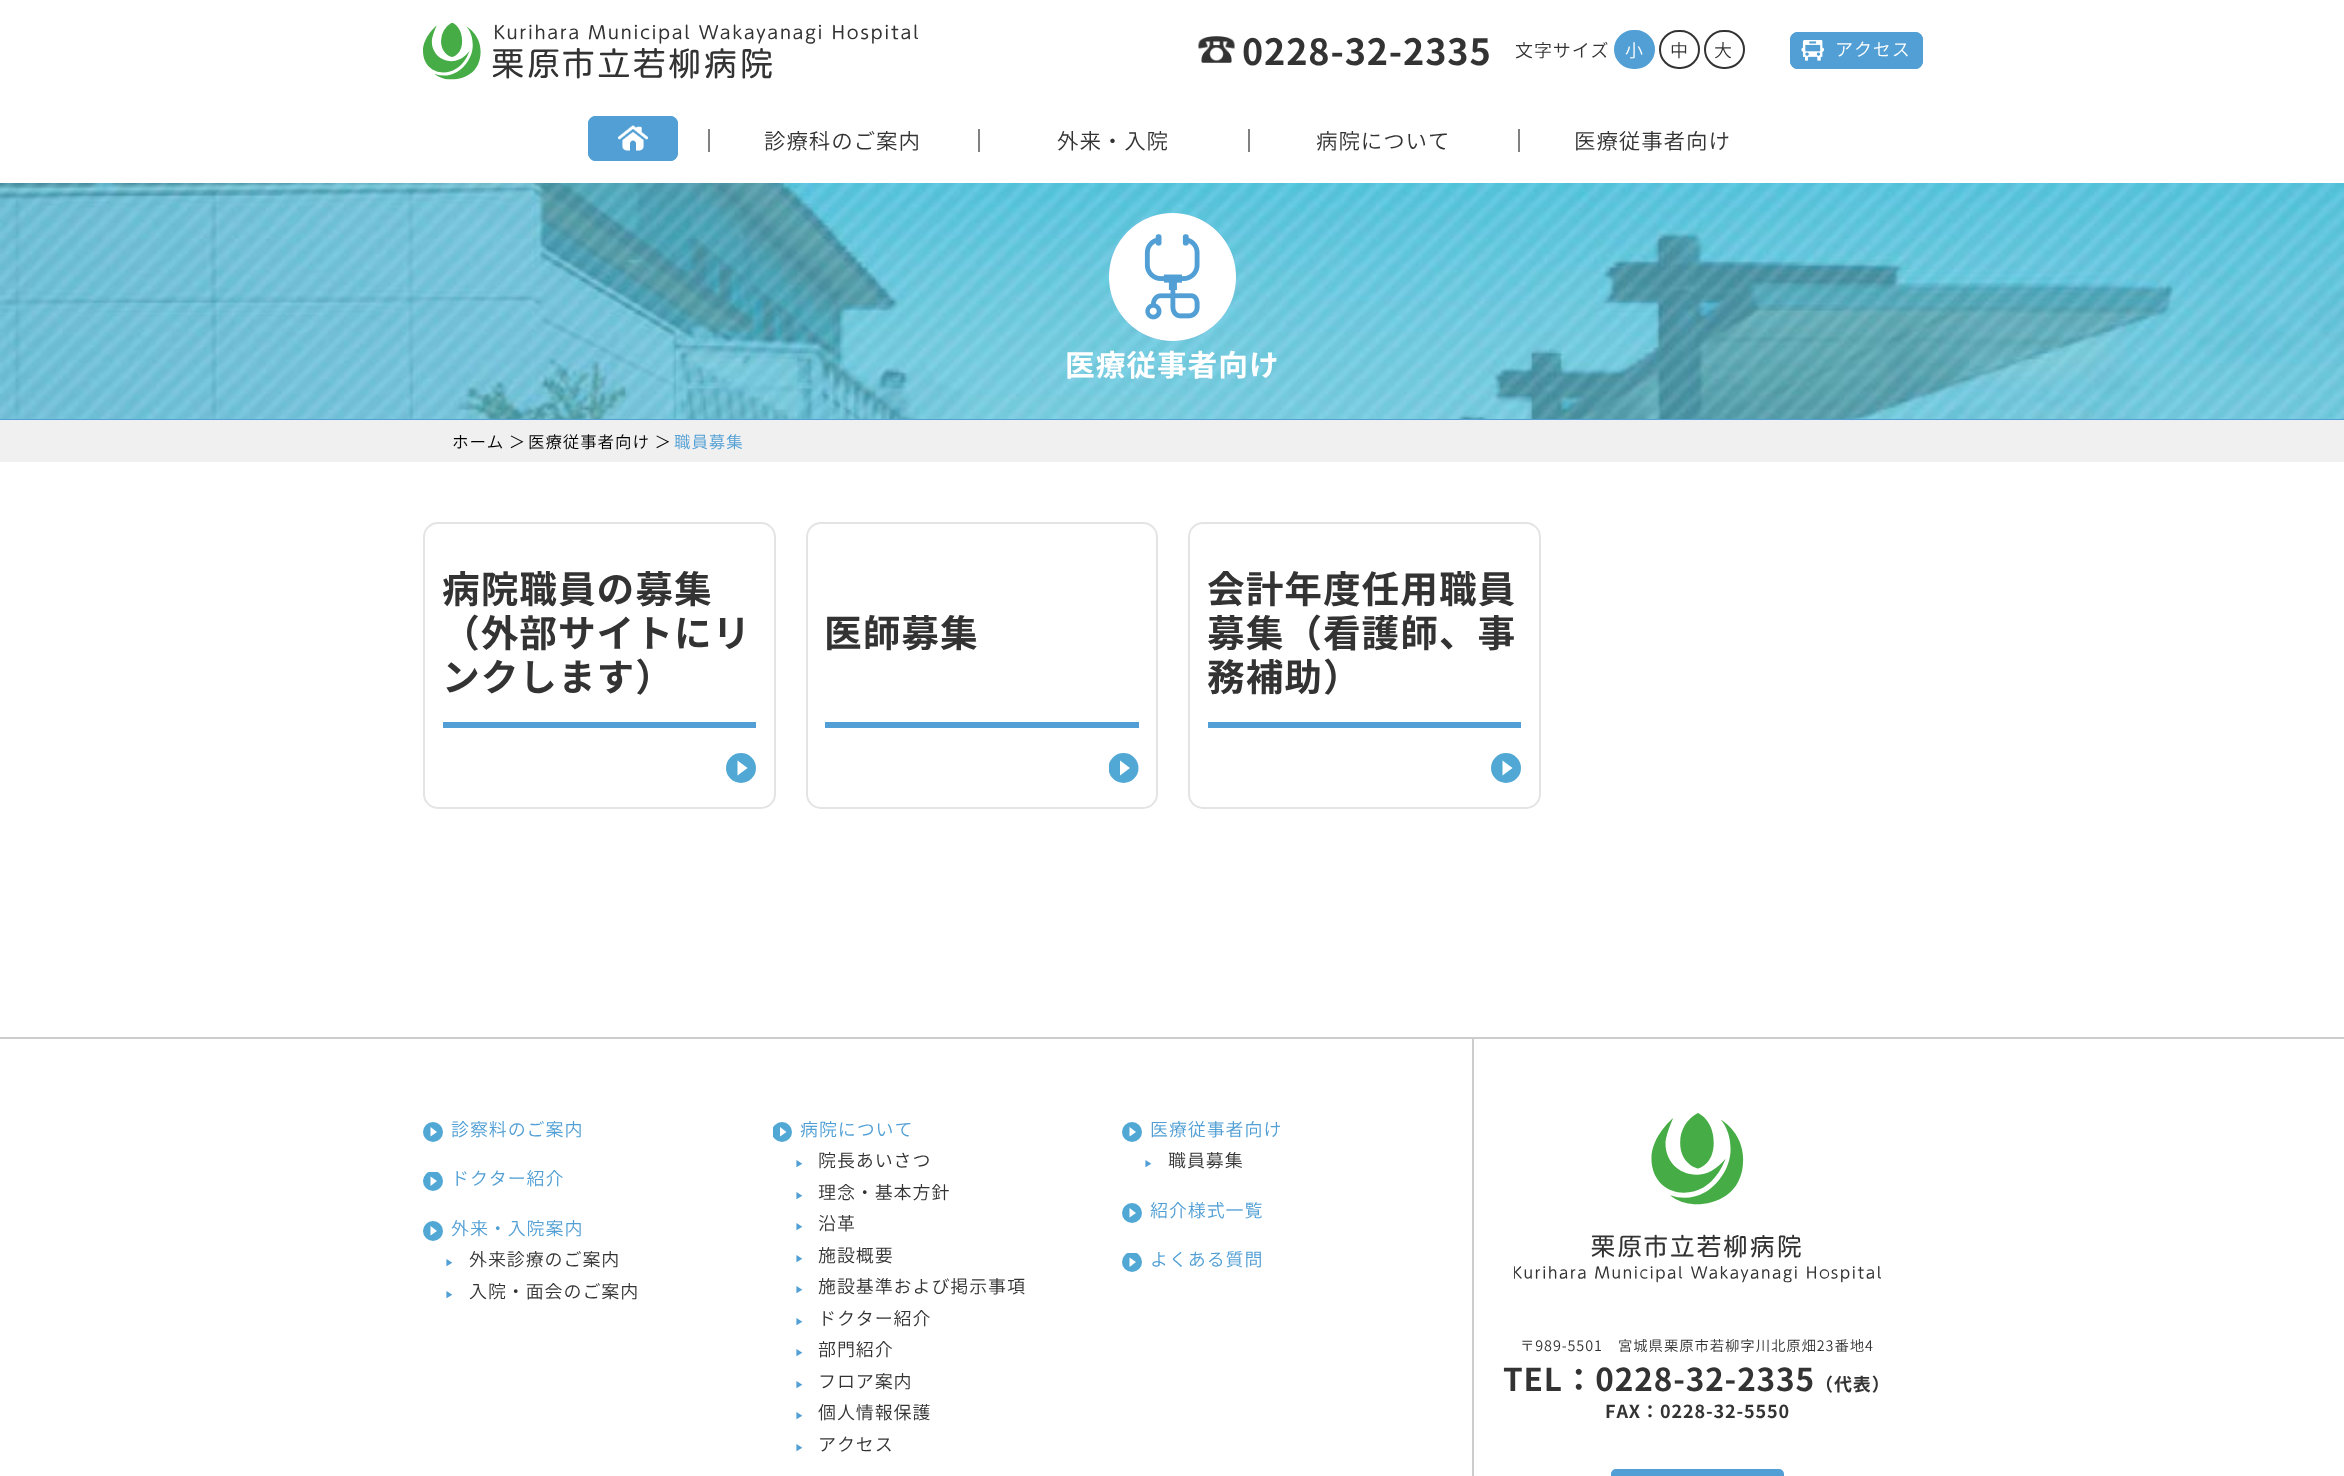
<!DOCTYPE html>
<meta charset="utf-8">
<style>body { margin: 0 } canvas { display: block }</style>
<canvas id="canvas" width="2344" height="1476"></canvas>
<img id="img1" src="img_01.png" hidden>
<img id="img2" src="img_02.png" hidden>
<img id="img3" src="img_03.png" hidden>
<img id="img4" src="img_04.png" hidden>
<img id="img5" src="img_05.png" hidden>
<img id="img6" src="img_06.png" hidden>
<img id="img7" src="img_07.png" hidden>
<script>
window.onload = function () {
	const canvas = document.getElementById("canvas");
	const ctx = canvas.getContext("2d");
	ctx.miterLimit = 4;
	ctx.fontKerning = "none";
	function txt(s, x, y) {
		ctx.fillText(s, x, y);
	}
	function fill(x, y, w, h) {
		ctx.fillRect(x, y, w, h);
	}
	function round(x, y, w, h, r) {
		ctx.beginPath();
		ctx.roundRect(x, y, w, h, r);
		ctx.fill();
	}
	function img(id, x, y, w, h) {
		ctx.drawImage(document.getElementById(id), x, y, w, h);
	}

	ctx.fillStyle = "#FFFFFF";
	fill(0, 0, 2344, 1476);
	img("img1", 423, 23, 495, 57);
	img("img2", 1198, 36, 37, 27);
	ctx.fillStyle = "#519FD4";
	ctx.beginPath();
	ctx.roundRect(1615, 31, 39, 37, 18.5);
	ctx.fill();
	ctx.strokeStyle = "#519FD4";
	ctx.lineWidth = 2;
	ctx.stroke();
	ctx.beginPath();
	ctx.roundRect(1660, 31, 39, 37, 18.5);
	ctx.strokeStyle = "#333333";
	ctx.stroke();
	ctx.beginPath();
	ctx.roundRect(1705, 31, 39, 37, 18.5);
	ctx.stroke();
	round(1790, 32, 133, 37, 8);
	img("img3", 1801, 40, 23, 21);
	ctx.beginPath();
	ctx.roundRect(1794, 36, 125, 29, 4);
	ctx.strokeStyle = "#519FD4";
	ctx.lineWidth = 8;
	ctx.stroke();
	round(588, 116, 90, 45, 8);
	img("img4", 618, 125, 30, 26);
	ctx.beginPath();
	ctx.roundRect(592, 120, 82, 37, 4);
	ctx.stroke();
	ctx.fillStyle = "#808080";
	fill(708, 129, 2, 23);
	fill(978, 129, 2, 23);
	fill(1248, 129, 2, 23);
	fill(1518, 129, 2, 23);
	img("img5", 0, 183, 2344, 236);
	ctx.fillStyle = "#519FD4";
	fill(0, 419, 2344, 1);
	round(1109, 213, 127, 128, 63.5);
	img("img6", 1109, 213, 127, 128);
	ctx.fillStyle = "#F0F0F0";
	fill(0, 420, 2344, 42);
	ctx.beginPath();
	ctx.roundRect(424, 523, 351, 285, 14);
	ctx.strokeStyle = "#E4E4E4";
	ctx.lineWidth = 2;
	ctx.stroke();
	ctx.fillStyle = "#519FD4";
	fill(443, 722, 313, 6);
	ctx.fillStyle = "#51A8D4";
	ctx.beginPath();
	ctx.arc(741, 768, 15, 0, Math.PI * 2);
	ctx.fill();
	ctx.fillStyle = "#FFFFFF";
	ctx.beginPath();
	ctx.moveTo(737.5, 760.5);
	ctx.lineTo(747.5, 768);
	ctx.lineTo(737.5, 775.5);
	ctx.closePath();
	ctx.fill();
	ctx.beginPath();
	ctx.roundRect(807, 523, 350, 285, 14);
	ctx.stroke();
	ctx.fillStyle = "#519FD4";
	fill(825, 722, 314, 6);
	ctx.save();
	ctx.beginPath();
	ctx.rect(1109, 753, 30, 30);
	ctx.clip();
	ctx.fillStyle = "#51A8D4";
	ctx.beginPath();
	ctx.arc(1123.5, 768, 15, 0, Math.PI * 2);
	ctx.fill();
	ctx.restore();
	ctx.fillStyle = "#FFFFFF";
	ctx.beginPath();
	ctx.moveTo(1120, 760.5);
	ctx.lineTo(1130, 768);
	ctx.lineTo(1120, 775.5);
	ctx.closePath();
	ctx.fill();
	ctx.beginPath();
	ctx.roundRect(1189, 523, 351, 285, 14);
	ctx.stroke();
	ctx.fillStyle = "#519FD4";
	fill(1208, 722, 313, 6);
	ctx.fillStyle = "#51A8D4";
	ctx.beginPath();
	ctx.arc(1506, 768, 15, 0, Math.PI * 2);
	ctx.fill();
	ctx.fillStyle = "#FFFFFF";
	ctx.beginPath();
	ctx.moveTo(1502.5, 760.5);
	ctx.lineTo(1512.5, 768);
	ctx.lineTo(1502.5, 775.5);
	ctx.closePath();
	ctx.fill();
	ctx.fillStyle = "#CCCCCC";
	fill(0, 1037, 2344, 2);
	fill(1472, 1038, 2, 438);
	ctx.fillStyle = "#51A8D4";
	ctx.beginPath();
	ctx.arc(433, 1132, 10, 0, Math.PI * 2);
	ctx.fill();
	ctx.fillStyle = "#FFFFFF";
	ctx.beginPath();
	ctx.moveTo(430.5, 1127);
	ctx.lineTo(437, 1132);
	ctx.lineTo(430.5, 1136.5);
	ctx.closePath();
	ctx.fill();
	ctx.save();
	ctx.beginPath();
	ctx.rect(423, 1172, 20, 19);
	ctx.clip();
	ctx.fillStyle = "#51A8D4";
	ctx.beginPath();
	ctx.arc(433, 1181, 10, 0, Math.PI * 2);
	ctx.fill();
	ctx.restore();
	ctx.beginPath();
	ctx.moveTo(430.5, 1176.5);
	ctx.lineTo(437, 1181);
	ctx.lineTo(430.5, 1186);
	ctx.closePath();
	ctx.fill();
	ctx.fillStyle = "#51A8D4";
	ctx.beginPath();
	ctx.arc(433, 1231, 10, 0, Math.PI * 2);
	ctx.fill();
	ctx.fillStyle = "#FFFFFF";
	ctx.beginPath();
	ctx.moveTo(430.5, 1226);
	ctx.lineTo(437, 1231);
	ctx.lineTo(430.5, 1235.5);
	ctx.closePath();
	ctx.fill();
	ctx.save();
	ctx.beginPath();
	ctx.rect(773, 1122, 19, 20);
	ctx.clip();
	ctx.fillStyle = "#51A8D4";
	ctx.beginPath();
	ctx.arc(782, 1132, 10, 0, Math.PI * 2);
	ctx.fill();
	ctx.restore();
	ctx.beginPath();
	ctx.moveTo(780, 1127);
	ctx.lineTo(786.5, 1132);
	ctx.lineTo(780, 1136.5);
	ctx.closePath();
	ctx.fill();
	ctx.fillStyle = "#51A8D4";
	ctx.beginPath();
	ctx.arc(1132, 1132, 10, 0, Math.PI * 2);
	ctx.fill();
	ctx.fillStyle = "#FFFFFF";
	ctx.beginPath();
	ctx.moveTo(1129.5, 1127);
	ctx.lineTo(1136, 1132);
	ctx.lineTo(1129.5, 1136.5);
	ctx.closePath();
	ctx.fill();
	ctx.fillStyle = "#51A8D4";
	ctx.beginPath();
	ctx.arc(1132, 1213, 10, 0, Math.PI * 2);
	ctx.fill();
	ctx.fillStyle = "#FFFFFF";
	ctx.beginPath();
	ctx.moveTo(1129.5, 1208);
	ctx.lineTo(1136, 1213);
	ctx.lineTo(1129.5, 1217.5);
	ctx.closePath();
	ctx.fill();
	ctx.save();
	ctx.beginPath();
	ctx.rect(1122, 1253, 20, 19);
	ctx.clip();
	ctx.fillStyle = "#51A8D4";
	ctx.beginPath();
	ctx.arc(1132, 1262, 10, 0, Math.PI * 2);
	ctx.fill();
	ctx.restore();
	ctx.beginPath();
	ctx.moveTo(1129.5, 1257.5);
	ctx.lineTo(1136, 1262);
	ctx.lineTo(1129.5, 1267);
	ctx.closePath();
	ctx.fill();
	img("img7", 1514, 1113, 367, 170);
	ctx.beginPath();
	ctx.roundRect(1615, 1473, 165, 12, 1);
	ctx.strokeStyle = "#519FD4";
	ctx.lineWidth = 8;
	ctx.stroke();
	ctx.letterSpacing = "0.9px";
	ctx.font = "bold 36px Noto Sans JP";
	ctx.fillStyle = "#333333";
	txt("0228-32-2335", 1242, 65);
	ctx.font = "300 18px Noto Sans JP";
	txt("文字サイズ", 1515, 57);
	ctx.fillStyle = "#FFFFFF";
	txt("小", 1625, 57);
	ctx.fillStyle = "#333333";
	txt("中", 1670, 57);
	txt("大", 1714, 57);
	ctx.fillStyle = "#FFFFFF";
	txt("アクセス", 1835, 56);
	ctx.font = "300 21.5px Noto Sans JP";
	ctx.fillStyle = "#333333";
	txt("診療科のご案内", 764, 149);
	txt("外来・入院", 1057, 149);
	txt("病院について", 1316, 149);
	txt("医療従事者向け", 1574, 149);
	ctx.font = "bold 29.75px Noto Sans JP";
	ctx.fillStyle = "#FFFFFF";
	txt("医療従事者向け", 1065, 376);
	ctx.font = "300 16.5px Noto Sans JP";
	ctx.fillStyle = "#000000";
	txt("ホーム ＞", 452, 448);
	txt("医療従事者向け ＞", 528, 448);
	ctx.fillStyle = "#519FD4";
	txt("職員募集", 674, 448);
	ctx.font = "bold 37.75px Noto Sans JP";
	ctx.fillStyle = "#333333";
	txt("病院職員の募集", 442, 603);
	txt("（外部サイトにリ", 442, 647);
	txt("ンクします）", 442, 691);
	txt("医師募集", 824, 647);
	txt("会計年度任用職員", 1207, 603);
	txt("募集（看護師、事", 1207, 647);
	txt("務補助）", 1207, 691);
	ctx.font = "300 18px Noto Sans JP";
	ctx.fillStyle = "#519FD4";
	txt("診察料のご案内", 451, 1136);
	txt("ドクター紹介", 451, 1185);
	txt("外来・入院案内", 451, 1235);
	ctx.font = "500 9px WenQuanYi Zen Hei";
	txt("▶︎", 445, 1266);
	ctx.font = "300 18px Noto Sans JP";
	ctx.fillStyle = "#333333";
	txt("外来診療のご案内", 469, 1266);
	ctx.font = "500 9px WenQuanYi Zen Hei";
	ctx.fillStyle = "#519FD4";
	txt("▶︎", 445, 1298);
	ctx.font = "300 18px Noto Sans JP";
	ctx.fillStyle = "#333333";
	txt("入院・面会のご案内", 469, 1298);
	ctx.fillStyle = "#519FD4";
	txt("病院について", 800, 1136);
	ctx.font = "500 9px WenQuanYi Zen Hei";
	txt("▶︎", 795, 1167);
	ctx.font = "300 18px Noto Sans JP";
	ctx.fillStyle = "#333333";
	txt("院長あいさつ", 818, 1167);
	ctx.font = "500 9px WenQuanYi Zen Hei";
	ctx.fillStyle = "#519FD4";
	txt("▶︎", 795, 1199);
	ctx.font = "300 18px Noto Sans JP";
	ctx.fillStyle = "#333333";
	txt("理念・基本方針", 818, 1199);
	ctx.font = "500 9px WenQuanYi Zen Hei";
	ctx.fillStyle = "#519FD4";
	txt("▶︎", 795, 1230);
	ctx.font = "300 18px Noto Sans JP";
	ctx.fillStyle = "#333333";
	txt("沿革", 818, 1230);
	ctx.font = "500 9px WenQuanYi Zen Hei";
	ctx.fillStyle = "#519FD4";
	txt("▶︎", 795, 1262);
	ctx.font = "300 18px Noto Sans JP";
	ctx.fillStyle = "#333333";
	txt("施設概要", 818, 1262);
	ctx.font = "500 9px WenQuanYi Zen Hei";
	ctx.fillStyle = "#519FD4";
	txt("▶︎", 795, 1293);
	ctx.font = "300 18px Noto Sans JP";
	ctx.fillStyle = "#333333";
	txt("施設基準および掲示事項", 818, 1293);
	ctx.font = "500 9px WenQuanYi Zen Hei";
	ctx.fillStyle = "#519FD4";
	txt("▶︎", 795, 1325);
	ctx.font = "300 18px Noto Sans JP";
	ctx.fillStyle = "#333333";
	txt("ドクター紹介", 818, 1325);
	ctx.font = "500 9px WenQuanYi Zen Hei";
	ctx.fillStyle = "#519FD4";
	txt("▶︎", 795, 1356);
	ctx.font = "300 18px Noto Sans JP";
	ctx.fillStyle = "#333333";
	txt("部門紹介", 818, 1356);
	ctx.font = "500 9px WenQuanYi Zen Hei";
	ctx.fillStyle = "#519FD4";
	txt("▶︎", 795, 1388);
	ctx.font = "300 18px Noto Sans JP";
	ctx.fillStyle = "#333333";
	txt("フロア案内", 818, 1388);
	ctx.font = "500 9px WenQuanYi Zen Hei";
	ctx.fillStyle = "#519FD4";
	txt("▶︎", 795, 1419);
	ctx.font = "300 18px Noto Sans JP";
	ctx.fillStyle = "#333333";
	txt("個人情報保護", 818, 1419);
	ctx.font = "500 9px WenQuanYi Zen Hei";
	ctx.fillStyle = "#519FD4";
	txt("▶︎", 795, 1451);
	ctx.font = "300 18px Noto Sans JP";
	ctx.fillStyle = "#333333";
	txt("アクセス", 818, 1451);
	ctx.fillStyle = "#519FD4";
	txt("医療従事者向け", 1150, 1136);
	ctx.font = "500 9px WenQuanYi Zen Hei";
	txt("▶︎", 1144, 1167);
	ctx.font = "300 18px Noto Sans JP";
	ctx.fillStyle = "#333333";
	txt("職員募集", 1168, 1167);
	ctx.fillStyle = "#519FD4";
	txt("紹介様式一覧", 1150, 1217);
	txt("よくある質問", 1150, 1266);
	ctx.font = "300 14.4px Noto Sans JP";
	ctx.fillStyle = "#333333";
	txt("〒989-5501　宮城県栗原市若柳字川北原畑23番地4", 1520, 1351);
	ctx.font = "bold 31.5px Noto Sans JP";
	txt("TEL：0228-32-2335", 1503, 1391);
	ctx.font = "bold 18px Noto Sans JP";
	txt("（代表）", 1815, 1391);
	txt("FAX：0228-32-5550", 1605, 1418);
};
</script>
